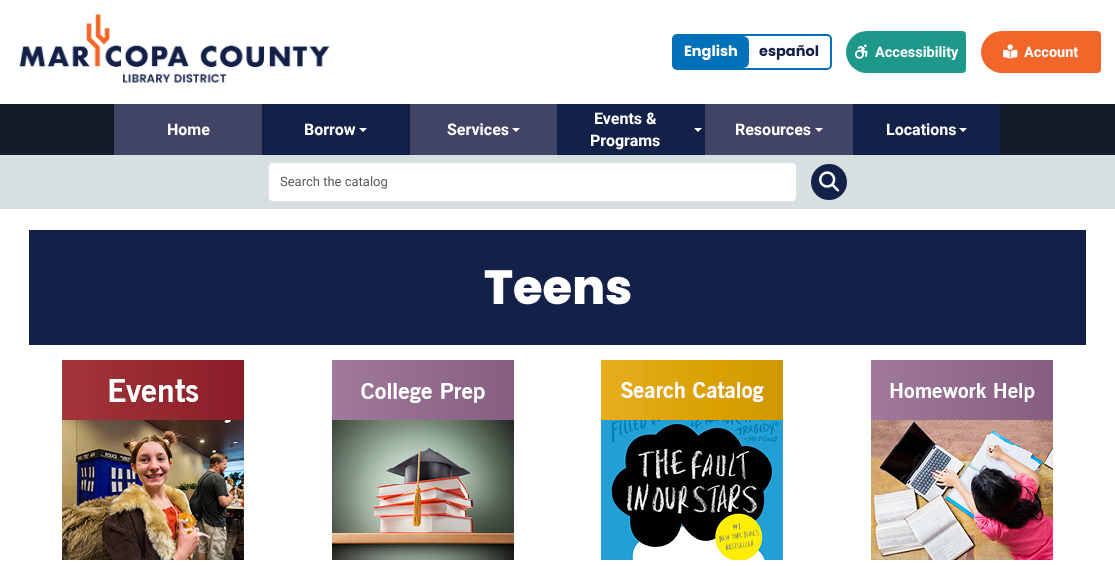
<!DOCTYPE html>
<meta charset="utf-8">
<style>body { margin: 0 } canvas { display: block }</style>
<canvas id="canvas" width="1115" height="566"></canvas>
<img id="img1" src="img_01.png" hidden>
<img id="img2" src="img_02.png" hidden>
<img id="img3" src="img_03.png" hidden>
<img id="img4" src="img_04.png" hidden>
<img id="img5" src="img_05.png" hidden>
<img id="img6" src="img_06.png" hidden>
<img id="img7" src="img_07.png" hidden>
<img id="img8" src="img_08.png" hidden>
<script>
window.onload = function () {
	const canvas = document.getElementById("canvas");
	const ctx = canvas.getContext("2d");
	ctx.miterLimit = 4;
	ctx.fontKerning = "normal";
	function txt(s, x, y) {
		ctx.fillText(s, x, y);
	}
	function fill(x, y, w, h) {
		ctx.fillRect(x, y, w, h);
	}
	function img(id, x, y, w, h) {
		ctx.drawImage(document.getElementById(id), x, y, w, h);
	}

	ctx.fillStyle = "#FFFFFF";
	fill(0, 0, 1115, 566);
	img("img1", 19, 13, 311, 70);
	ctx.beginPath();
	ctx.roundRect(673, 35, 158, 34, 4);
	ctx.strokeStyle = "#0070B9";
	ctx.lineWidth = 2;
	ctx.stroke();
	ctx.fillStyle = "#0070B9";
	ctx.beginPath();
	ctx.roundRect(674, 36, 75, 32, [0, 6, 6, 0]);
	ctx.fill();
	ctx.fillStyle = "#1E988A";
	ctx.beginPath();
	ctx.roundRect(846, 31, 120, 42, [21, 4, 4, 21]);
	ctx.fill();
	img("img2", 855, 44, 13, 15);
	ctx.fillStyle = "#F26729";
	ctx.beginPath();
	ctx.roundRect(981, 31, 120, 42, [21, 4, 4, 21]);
	ctx.fill();
	img("img3", 1003, 44, 15, 15);
	ctx.fillStyle = "#131D28";
	fill(0, 104, 1115, 51);
	ctx.fillStyle = "#424466";
	fill(114, 104, 148, 51);
	ctx.fillStyle = "#132048";
	fill(262, 104, 148, 51);
	ctx.fillStyle = "#FFFFFF";
	ctx.beginPath();
	ctx.moveTo(359, 128);
	ctx.lineTo(367, 128);
	ctx.lineTo(363, 132);
	ctx.closePath();
	ctx.fill();
	ctx.fillStyle = "#424466";
	fill(410, 104, 147, 51);
	ctx.fillStyle = "#FFFFFF";
	ctx.beginPath();
	ctx.moveTo(512, 128);
	ctx.lineTo(520, 128);
	ctx.lineTo(516, 132);
	ctx.closePath();
	ctx.fill();
	ctx.fillStyle = "#132048";
	fill(557, 104, 148, 51);
	ctx.fillStyle = "#FFFFFF";
	ctx.beginPath();
	ctx.moveTo(694, 128);
	ctx.lineTo(702, 128);
	ctx.lineTo(698, 132);
	ctx.closePath();
	ctx.fill();
	ctx.fillStyle = "#424466";
	fill(705, 104, 148, 51);
	ctx.fillStyle = "#FFFFFF";
	ctx.beginPath();
	ctx.moveTo(815, 128);
	ctx.lineTo(823, 128);
	ctx.lineTo(819, 132);
	ctx.closePath();
	ctx.fill();
	ctx.fillStyle = "#132048";
	fill(853, 104, 147, 51);
	ctx.fillStyle = "#FFFFFF";
	ctx.beginPath();
	ctx.moveTo(959, 128);
	ctx.lineTo(967, 128);
	ctx.lineTo(963, 132);
	ctx.closePath();
	ctx.fill();
	ctx.fillStyle = "#D8DFE1";
	fill(0, 155, 1115, 54);
	ctx.fillStyle = "#FFFFFF";
	ctx.beginPath();
	ctx.roundRect(268.5, 162.5, 528, 39, 4.5);
	ctx.fill();
	ctx.strokeStyle = "#DEE2E6";
	ctx.lineWidth = 1;
	ctx.stroke();
	ctx.fillStyle = "#132048";
	ctx.beginPath();
	ctx.arc(829, 182, 18, 0, Math.PI * 2);
	ctx.fill();
	img("img4", 819, 171, 21, 21);
	fill(29, 230, 1057, 115);
	img("img5", 62, 360, 182, 200);
	img("img6", 332, 360, 182, 200);
	img("img7", 601, 360, 182, 200);
	img("img8", 871, 360, 182, 200);
	ctx.font = "bold 14.5px Poppins";
	ctx.fillStyle = "#FFFFFF";
	txt("English", 684, 56);
	ctx.fillStyle = "#132048";
	txt("español", 759, 56);
	ctx.font = "bold 14.5px Roboto";
	ctx.fillStyle = "#FFFFFF";
	txt("Accessibility", 875, 57);
	txt("Account", 1024, 57);
	ctx.font = "bold 16px Roboto";
	txt("Home", 167, 135);
	txt("Borrow", 304, 135);
	txt("Services", 447, 135);
	txt("Events &", 594, 124);
	txt("Programs", 590, 146);
	txt("Resources", 735, 135);
	txt("Locations", 886, 135);
	ctx.font = "13px Roboto";
	ctx.fillStyle = "#595C5F";
	txt("Search the catalog", 280, 186);
	ctx.font = "800 48px Poppins";
	ctx.fillStyle = "#FFFFFF";
	txt("Teens", 484, 304);
};
</script>
